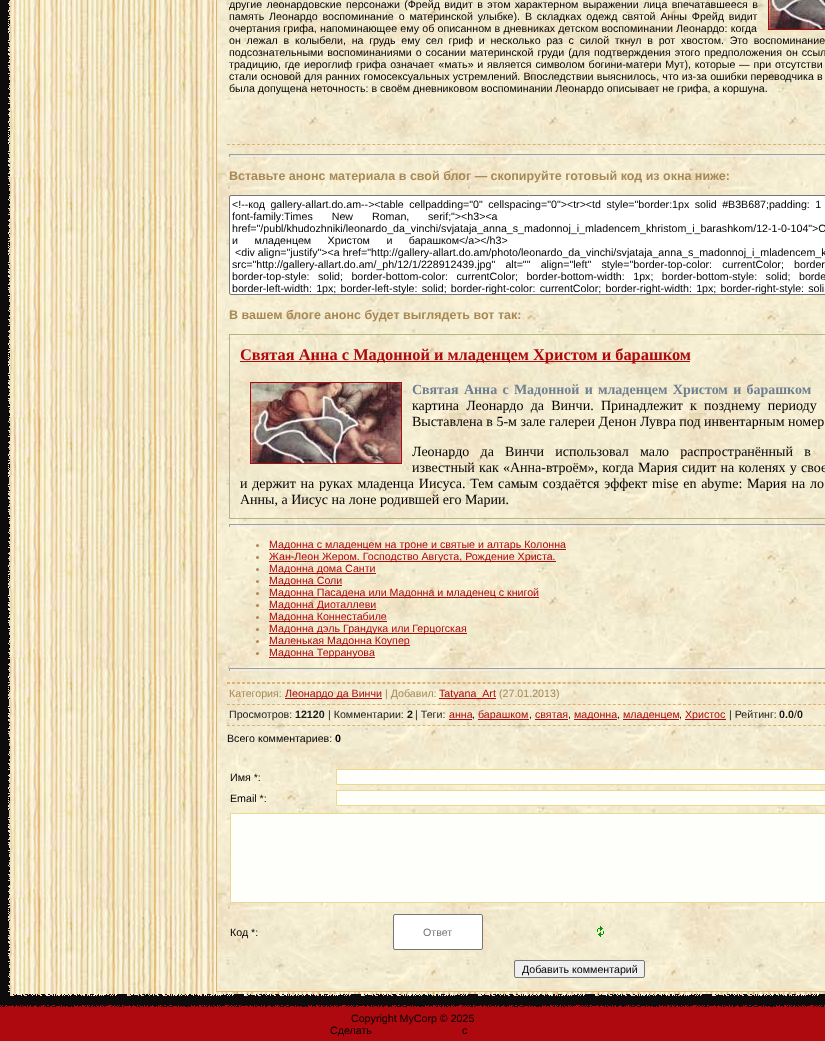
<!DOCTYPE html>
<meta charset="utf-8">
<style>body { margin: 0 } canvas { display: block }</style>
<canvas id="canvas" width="825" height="1041"></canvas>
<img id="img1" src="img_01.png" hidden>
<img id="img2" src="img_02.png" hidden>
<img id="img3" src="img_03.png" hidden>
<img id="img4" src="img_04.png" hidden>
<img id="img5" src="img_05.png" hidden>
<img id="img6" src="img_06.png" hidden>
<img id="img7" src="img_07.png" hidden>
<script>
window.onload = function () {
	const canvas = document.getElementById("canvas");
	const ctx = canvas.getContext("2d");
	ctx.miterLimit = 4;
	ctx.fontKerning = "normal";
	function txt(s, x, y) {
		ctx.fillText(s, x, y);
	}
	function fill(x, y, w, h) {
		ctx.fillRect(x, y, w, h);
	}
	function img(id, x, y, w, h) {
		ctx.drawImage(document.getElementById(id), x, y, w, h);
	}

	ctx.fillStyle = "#FFFFFF";
	fill(0, 0, 825, 1041);
	img("img1", 8, 0, 817, 996);
	img("img2", 0, 0, 10, 994);
	img("img3", 217, 0, 608, 991);
	ctx.strokeStyle = "#DBB270";
	ctx.strokeRect(216.5, -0.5, 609, 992);
	ctx.strokeStyle = "#AD090E";
	ctx.strokeRect(768.5, -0.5, 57, 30);
	img("img4", 769, 0, 56, 29);
	ctx.beginPath();
	ctx.moveTo(227, 144.5);
	ctx.lineTo(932, 144.5);
	ctx.strokeStyle = "#DBB270";
	ctx.setLineDash([3, 2.01]);
	ctx.stroke();
	ctx.beginPath();
	ctx.moveTo(227, 682.5);
	ctx.lineTo(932, 682.5);
	ctx.stroke();
	ctx.fillStyle = "#9F9F9F";
	fill(229, 154, 596, 1);
	ctx.fillStyle = "#EEEEEE";
	fill(229, 156, 596, 1);
	ctx.fillStyle = "#9F9F9F";
	fill(229, 154, 1, 3);
	ctx.fillStyle = "#FFFFFF";
	ctx.beginPath();
	ctx.roundRect(229.5, 195.5, 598, 99, 1.5);
	ctx.fill();
	ctx.strokeStyle = "#767676";
	ctx.setLineDash([]);
	ctx.stroke();
	ctx.strokeStyle = "#B3B687";
	ctx.strokeRect(229.5, 334.5, 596, 184);
	ctx.fillStyle = "#AD090E";
	fill(240, 361, 450, 1);
	ctx.strokeStyle = "#AD090E";
	ctx.strokeRect(250.5, 382.5, 151, 81);
	img("img5", 251, 383, 150, 80);
	ctx.fillStyle = "#9F9F9F";
	fill(229, 524, 596, 1);
	ctx.fillStyle = "#EEEEEE";
	fill(229, 526, 596, 1);
	ctx.fillStyle = "#9F9F9F";
	fill(229, 524, 1, 3);
	ctx.fillStyle = "#A88956";
	ctx.beginPath();
	ctx.arc(257.5, 545.5, 1.5, 0, Math.PI * 2);
	ctx.fill();
	ctx.fillStyle = "#AD090E";
	fill(269, 549, 297, 1);
	ctx.fillStyle = "#A88956";
	ctx.beginPath();
	ctx.arc(257.5, 557.5, 1.5, 0, Math.PI * 2);
	ctx.fill();
	ctx.fillStyle = "#AD090E";
	fill(269, 561, 287, 1);
	ctx.fillStyle = "#A88956";
	ctx.beginPath();
	ctx.arc(257.5, 569.5, 1.5, 0, Math.PI * 2);
	ctx.fill();
	ctx.fillStyle = "#AD090E";
	fill(269, 573, 107, 1);
	ctx.fillStyle = "#A88956";
	ctx.beginPath();
	ctx.arc(257.5, 581.5, 1.5, 0, Math.PI * 2);
	ctx.fill();
	ctx.fillStyle = "#AD090E";
	fill(269, 585, 73, 1);
	ctx.fillStyle = "#A88956";
	ctx.beginPath();
	ctx.arc(257.5, 593.5, 1.5, 0, Math.PI * 2);
	ctx.fill();
	ctx.fillStyle = "#AD090E";
	fill(269, 597, 270, 1);
	ctx.fillStyle = "#A88956";
	ctx.beginPath();
	ctx.arc(257.5, 605.5, 1.5, 0, Math.PI * 2);
	ctx.fill();
	ctx.fillStyle = "#AD090E";
	fill(269, 609, 107, 1);
	ctx.fillStyle = "#A88956";
	ctx.beginPath();
	ctx.arc(257.5, 617.5, 1.5, 0, Math.PI * 2);
	ctx.fill();
	ctx.fillStyle = "#AD090E";
	fill(269, 621, 118, 1);
	ctx.fillStyle = "#A88956";
	ctx.beginPath();
	ctx.arc(257.5, 629.5, 1.5, 0, Math.PI * 2);
	ctx.fill();
	ctx.fillStyle = "#AD090E";
	fill(269, 633, 198, 1);
	ctx.fillStyle = "#A88956";
	ctx.beginPath();
	ctx.arc(257.5, 641.5, 1.5, 0, Math.PI * 2);
	ctx.fill();
	ctx.fillStyle = "#AD090E";
	fill(269, 645, 141, 1);
	ctx.fillStyle = "#A88956";
	ctx.beginPath();
	ctx.arc(257.5, 653.5, 1.5, 0, Math.PI * 2);
	ctx.fill();
	ctx.fillStyle = "#AD090E";
	fill(269, 657, 106, 1);
	ctx.fillStyle = "#9F9F9F";
	fill(229, 668, 596, 1);
	ctx.fillStyle = "#EEEEEE";
	fill(229, 670, 596, 1);
	ctx.fillStyle = "#9F9F9F";
	fill(229, 668, 1, 3);
	ctx.beginPath();
	ctx.moveTo(227, 683.5);
	ctx.lineTo(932, 683.5);
	ctx.strokeStyle = "#DBB270";
	ctx.setLineDash([3, 2.01]);
	ctx.stroke();
	ctx.beginPath();
	ctx.moveTo(227, 704.5);
	ctx.lineTo(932, 704.5);
	ctx.stroke();
	ctx.fillStyle = "#AD090E";
	fill(285, 698, 97, 1);
	fill(439, 698, 57, 1);
	ctx.beginPath();
	ctx.moveTo(227, 725.5);
	ctx.lineTo(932, 725.5);
	ctx.stroke();
	fill(449, 719, 23, 1);
	fill(478, 719, 51, 1);
	fill(535, 719, 33, 1);
	fill(574, 719, 43, 1);
	fill(623, 719, 56, 1);
	fill(685, 719, 41, 1);
	ctx.fillStyle = "#FEFEFA";
	ctx.beginPath();
	ctx.rect(336.5, 769.5, 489, 15);
	ctx.fill();
	ctx.strokeStyle = "#EBD98E";
	ctx.setLineDash([]);
	ctx.stroke();
	ctx.beginPath();
	ctx.rect(336.5, 790.5, 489, 15);
	ctx.fill();
	ctx.stroke();
	ctx.beginPath();
	ctx.rect(230.5, 813.5, 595, 89);
	ctx.fill();
	ctx.stroke();
	ctx.fillStyle = "#FFFFFF";
	ctx.beginPath();
	ctx.roundRect(393.5, 914.5, 89, 35, 1.5);
	ctx.fill();
	ctx.strokeStyle = "#767676";
	ctx.stroke();
	img("img6", 597, 926, 7, 11);
	ctx.fillStyle = "#EFEFEF";
	ctx.beginPath();
	ctx.roundRect(514.5, 960.5, 130, 17, 1.5);
	ctx.fill();
	ctx.stroke();
	img("img7", 0, 994, 825, 47);
	ctx.wordSpacing = "1.4px";
	ctx.font = "10.67px Liberation Sans";
	ctx.fillStyle = "#000000";
	txt("другие леонардовские персонажи (Фрейд видит в этом характерном выражении лица впечатавшееся в", 229, 8);
	ctx.wordSpacing = "1.9px";
	txt("память Леонардо воспоминание о материнской улыбке). В складках одежд святой Анны Фрейд видит", 229, 20);
	ctx.wordSpacing = "0.25px";
	txt("очертания грифа, напоминающее ему об описанном в дневниках детском воспоминании Леонардо: когда", 229, 32);
	ctx.wordSpacing = "2.75px";
	txt("он лежал в колыбели, на грудь ему сел гриф и несколько раз с силой ткнул в рот хвостом. Это воспоминание", 229, 44);
	ctx.wordSpacing = "1px";
	txt("подсознательными воспоминаниями о сосании материнской груди (для подтверждения этого предположения он ссыл", 229, 56);
	ctx.wordSpacing = "0.8px";
	txt("традицию, где иероглиф грифа означает «мать» и является символом богини-матери Мут), которые — при отсутстви", 229, 68);
	ctx.wordSpacing = "0.25px";
	txt("стали основой для ранних гомосексуальных устремлений. Впоследствии выяснилось, что из-за ошибки переводчика в", 229, 80);
	ctx.wordSpacing = "0px";
	txt("была допущена неточность: в своём дневниковом воспоминании Леонардо описывает не грифа, а коршуна.", 229, 92);
	ctx.font = "bold 12.5px Liberation Sans";
	ctx.fillStyle = "#A88956";
	txt("Вставьте анонс материала в свой блог — скопируйте готовый код из окна ниже:", 229, 180);
	ctx.wordSpacing = "2.5px";
	ctx.font = "10.67px Liberation Sans";
	ctx.fillStyle = "#000000";
	txt("<\!--код gallery-allart.do.am--><table cellpadding=\"0\" cellspacing=\"0\"><tr><td style=\"border:1px solid #B3B687;padding: 1", 232, 208);
	ctx.wordSpacing = "16px";
	txt("font-family:Times New Roman,", 232, 220);
	ctx.wordSpacing = "0px";
	txt("serif;\"><h3><a", 428, 220);
	txt("href=\"/publ/khudozhniki/leonardo_da_vinchi/svjataja_anna_s_madonnoj_i_mladencem_khristom_i_barashkom/12-1-0-104\">С", 232, 232);
	ctx.wordSpacing = "13.5px";
	txt("и младенцем Христом и барашком<\/a><\/h3>", 232, 244);
	ctx.wordSpacing = "0px";
	txt("<div align=\"justify\"><a href=\"http://gallery-allart.do.am/photo/leonardo_da_vinchi/svjataja_anna_s_madonnoj_i_mladencem_k", 235, 256);
	ctx.wordSpacing = "7.25px";
	txt("src=\"http://gallery-allart.do.am/_ph/12/1/228912439.jpg\" alt=\"\" align=\"left\" style=\"border-top-color: currentColor; border", 232, 268);
	ctx.wordSpacing = "5.5px";
	txt("border-top-style: solid; border-bottom-color: currentColor; border-bottom-width: 1px; border-bottom-style: solid; borde", 232, 280);
	ctx.save();
	ctx.beginPath();
	ctx.rect(230, 196, 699, 98);
	ctx.clip();
	ctx.wordSpacing = "1.25px";
	txt("border-left-width: 1px; border-left-style: solid; border-right-color: currentColor; border-right-width: 1px; border-right-style: soli", 232, 292);
	ctx.restore();
	ctx.wordSpacing = "0px";
	ctx.font = "bold 12.5px Liberation Sans";
	ctx.fillStyle = "#A88956";
	txt("В вашем блоге анонс будет выглядеть вот так:", 229, 319);
	ctx.font = "bold 16.4px Liberation Serif";
	ctx.fillStyle = "#AD090E";
	txt("Святая Анна с Мадонной и младенцем Христом и барашком", 240, 360);
	ctx.wordSpacing = "1.75px";
	ctx.font = "bold 14px Liberation Serif";
	ctx.fillStyle = "#708090";
	txt("Святая Анна с Мадонной и младенцем Христом и барашком", 412, 394);
	ctx.wordSpacing = "3.75px";
	ctx.font = "14px Liberation Serif";
	ctx.fillStyle = "#000000";
	txt("картина Леонардо да Винчи. Принадлежит к позднему периоду", 412, 410);
	ctx.wordSpacing = "0px";
	txt("Выставлена в 5-м зале галереи Денон Лувра под инвентарным номер", 412, 426);
	ctx.wordSpacing = "7.75px";
	txt("Леонардо да Винчи использовал мало распространённый в", 412, 456);
	ctx.wordSpacing = "0.75px";
	txt("известный как «Анна-втроём», когда Мария сидит на коленях у свое", 412, 472);
	ctx.wordSpacing = "1.25px";
	txt("и держит на руках младенца Иисуса. Тем самым создаётся эффект mise en abyme: Мария на ло", 240, 488);
	ctx.wordSpacing = "0px";
	txt("Анны, а Иисус на лоне родившей его Марии.", 240, 504);
	ctx.font = "10.67px Liberation Sans";
	ctx.fillStyle = "#AD090E";
	txt("Мадонна с младенцем на троне и святые и алтарь Колонна", 269, 548);
	txt("Жан-Леон Жером. Господство Августа, Рождение Христа.", 269, 560);
	txt("Мадонна дома Санти", 269, 572);
	txt("Мадонна Соли", 269, 584);
	txt("Мадонна Пасадена или Мадонна и младенец с книгой", 269, 596);
	txt("Мадонна Диоталлеви", 269, 608);
	txt("Мадонна Коннестабиле", 269, 620);
	txt("Мадонна дэль Грандука или Герцогская", 269, 632);
	txt("Маленькая Мадонна Коупер", 269, 644);
	txt("Мадонна Террануова", 269, 656);
	ctx.fillStyle = "#A88956";
	txt("Категория:", 229, 697);
	ctx.fillStyle = "#AD090E";
	txt("Леонардо да Винчи", 285, 697);
	ctx.fillStyle = "#A88956";
	txt("| Добавил:", 385, 697);
	ctx.fillStyle = "#AD090E";
	txt("Tatyana_Art", 439, 697);
	ctx.fillStyle = "#A88956";
	txt("(27.01.2013)", 499, 697);
	ctx.fillStyle = "#1A1A1A";
	txt("Просмотров:", 229, 718);
	ctx.font = "bold 10.67px Liberation Sans";
	txt("12120", 295, 718);
	ctx.font = "10.67px Liberation Sans";
	txt("| Комментарии:", 328, 718);
	ctx.font = "bold 10.67px Liberation Sans";
	txt("2", 407, 718);
	ctx.font = "10.67px Liberation Sans";
	txt("| Теги:", 415, 718);
	ctx.fillStyle = "#AD090E";
	txt("анна", 449, 718);
	ctx.fillStyle = "#1A1A1A";
	txt(",", 472, 718);
	ctx.fillStyle = "#AD090E";
	txt("барашком", 478, 718);
	ctx.fillStyle = "#1A1A1A";
	txt(",", 529, 718);
	ctx.fillStyle = "#AD090E";
	txt("святая", 535, 718);
	ctx.fillStyle = "#1A1A1A";
	txt(",", 568, 718);
	ctx.fillStyle = "#AD090E";
	txt("мадонна", 574, 718);
	ctx.fillStyle = "#1A1A1A";
	txt(",", 617, 718);
	ctx.fillStyle = "#AD090E";
	txt("младенцем", 623, 718);
	ctx.fillStyle = "#1A1A1A";
	txt(",", 679, 718);
	ctx.fillStyle = "#AD090E";
	txt("Христос", 685, 718);
	ctx.fillStyle = "#1A1A1A";
	txt("| Рейтинг:", 729, 718);
	ctx.font = "bold 10.67px Liberation Sans";
	txt("0.0", 779, 718);
	ctx.font = "10.67px Liberation Sans";
	txt("/", 794, 718);
	ctx.font = "bold 10.67px Liberation Sans";
	txt("0", 797, 718);
	ctx.font = "10.67px Liberation Sans";
	ctx.fillStyle = "#000000";
	txt("Всего комментариев:", 227, 742);
	ctx.font = "bold 10.67px Liberation Sans";
	txt("0", 335, 742);
	ctx.font = "10.67px Liberation Sans";
	txt("Имя *:", 230, 781);
	txt("Email *:", 230, 802);
	txt("Код *:", 230, 936);
	ctx.fillStyle = "#757575";
	txt("Ответ", 423, 936);
	ctx.fillStyle = "#000000";
	txt("Добавить комментарий", 522, 973);
	txt("Copyright MyCorp © 2025", 351, 1022);
	txt("Сделать", 330, 1034);
	txt("с", 462, 1034);
};
</script>
